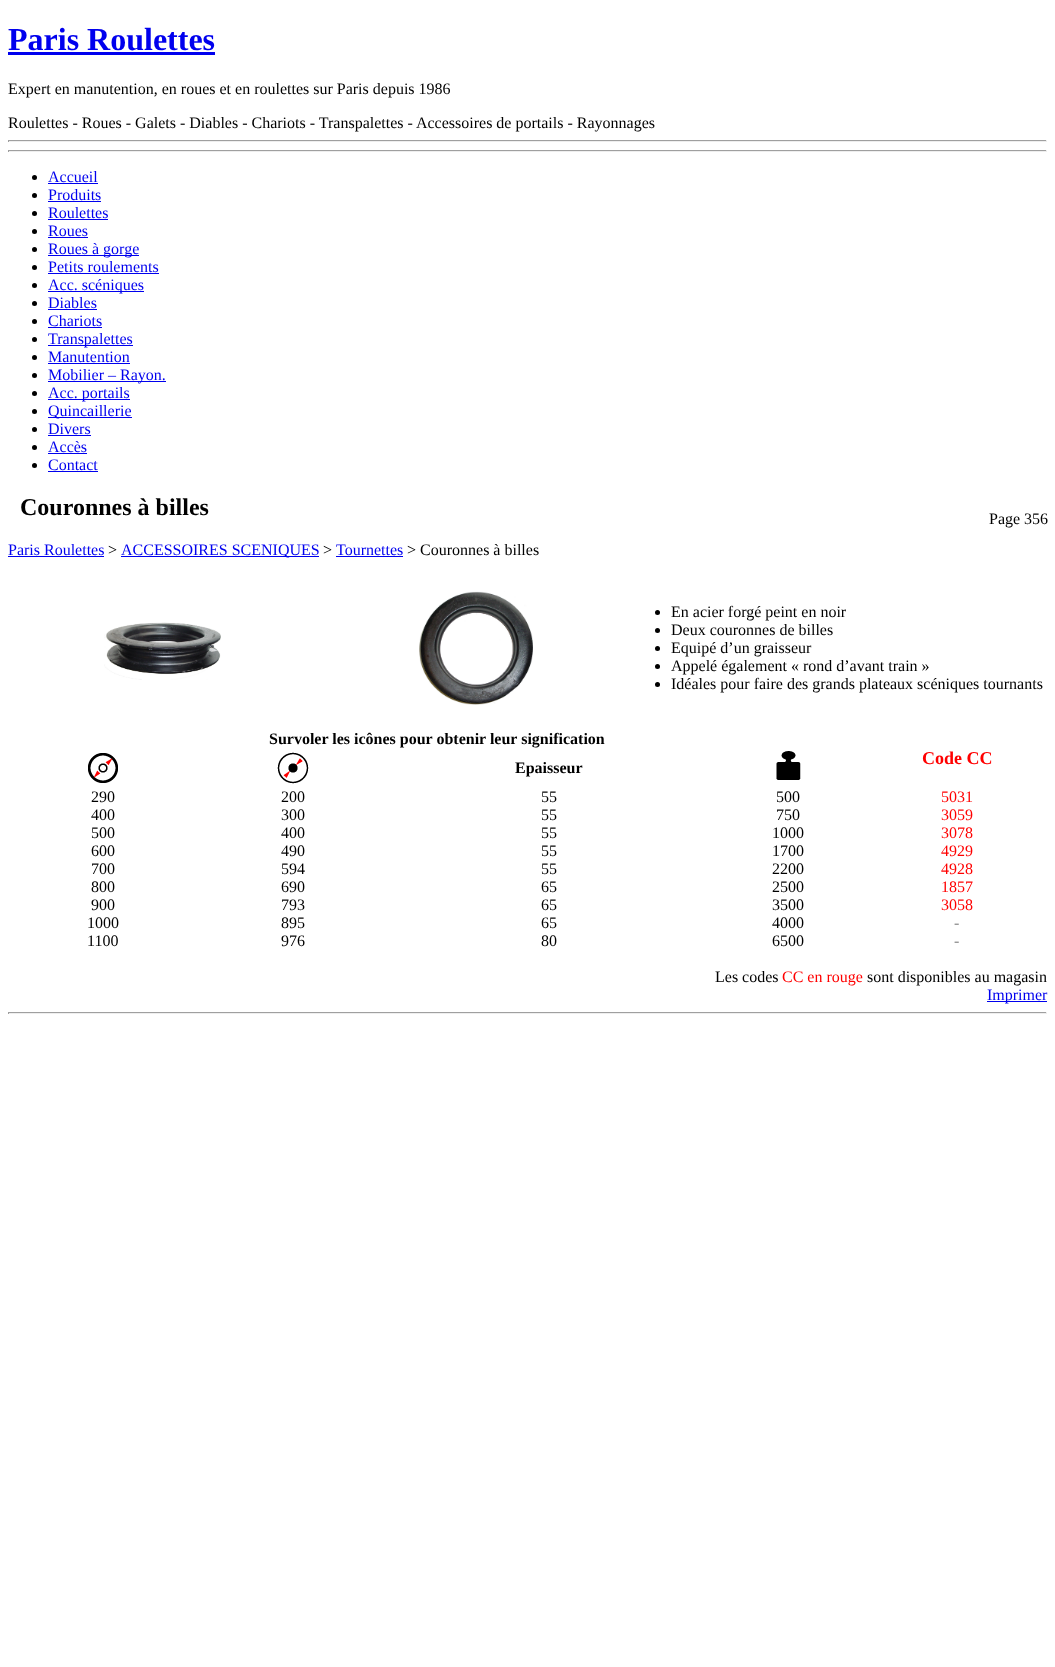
<!DOCTYPE html>
<meta charset="utf-8">
<style>body { margin: 0 } canvas { display: block }</style>
<canvas id="canvas" width="1055" height="1667"></canvas>
<img id="img1" src="img_01.png" hidden>
<img id="img2" src="img_02.png" hidden>
<img id="img3" src="img_03.png" hidden>
<img id="img4" src="img_04.png" hidden>
<img id="img5" src="img_05.png" hidden>
<script>
window.onload = function () {
	const canvas = document.getElementById("canvas");
	const ctx = canvas.getContext("2d");
	ctx.miterLimit = 4;
	ctx.fontKerning = "normal";
	function txt(s, x, y) {
		ctx.fillText(s, x, y);
	}
	function fill(x, y, w, h) {
		ctx.fillRect(x, y, w, h);
	}
	function img(id, x, y, w, h) {
		ctx.drawImage(document.getElementById(id), x, y, w, h);
	}

	ctx.fillStyle = "#FFFFFF";
	fill(0, 0, 1055, 1667);
	ctx.fillStyle = "#0000EE";
	fill(8, 52, 207, 3);
	ctx.fillStyle = "#9F9F9F";
	fill(8, 140, 1039, 1);
	ctx.fillStyle = "#EEEEEE";
	fill(1046, 140, 1, 2);
	fill(8, 141, 1039, 1);
	ctx.fillStyle = "#9F9F9F";
	fill(8, 140, 1, 2);
	fill(8, 150, 1039, 1);
	ctx.fillStyle = "#EEEEEE";
	fill(1046, 150, 1, 2);
	fill(8, 151, 1039, 1);
	ctx.fillStyle = "#9F9F9F";
	fill(8, 150, 1, 2);
	ctx.fillStyle = "#000000";
	ctx.beginPath();
	ctx.arc(34.5, 177.5, 2.5, 0, Math.PI * 2);
	ctx.fill();
	ctx.fillStyle = "#0000EE";
	fill(48, 183, 50, 1);
	ctx.fillStyle = "#000000";
	ctx.beginPath();
	ctx.arc(34.5, 195.5, 2.5, 0, Math.PI * 2);
	ctx.fill();
	ctx.fillStyle = "#0000EE";
	fill(48, 201, 53, 1);
	ctx.fillStyle = "#000000";
	ctx.beginPath();
	ctx.arc(34.5, 213.5, 2.5, 0, Math.PI * 2);
	ctx.fill();
	ctx.fillStyle = "#0000EE";
	fill(48, 219, 60, 1);
	ctx.fillStyle = "#000000";
	ctx.beginPath();
	ctx.arc(34.5, 231.5, 2.5, 0, Math.PI * 2);
	ctx.fill();
	ctx.fillStyle = "#0000EE";
	fill(48, 237, 40, 1);
	ctx.fillStyle = "#000000";
	ctx.beginPath();
	ctx.arc(34.5, 249.5, 2.5, 0, Math.PI * 2);
	ctx.fill();
	ctx.fillStyle = "#0000EE";
	fill(48, 255, 91, 1);
	ctx.fillStyle = "#000000";
	ctx.beginPath();
	ctx.arc(34.5, 267.5, 2.5, 0, Math.PI * 2);
	ctx.fill();
	ctx.fillStyle = "#0000EE";
	fill(48, 273, 111, 1);
	ctx.fillStyle = "#000000";
	ctx.beginPath();
	ctx.arc(34.5, 285.5, 2.5, 0, Math.PI * 2);
	ctx.fill();
	ctx.fillStyle = "#0000EE";
	fill(48, 291, 96, 1);
	ctx.fillStyle = "#000000";
	ctx.beginPath();
	ctx.arc(34.5, 303.5, 2.5, 0, Math.PI * 2);
	ctx.fill();
	ctx.fillStyle = "#0000EE";
	fill(48, 309, 49, 1);
	ctx.fillStyle = "#000000";
	ctx.beginPath();
	ctx.arc(34.5, 321.5, 2.5, 0, Math.PI * 2);
	ctx.fill();
	ctx.fillStyle = "#0000EE";
	fill(48, 327, 54, 1);
	ctx.fillStyle = "#000000";
	ctx.beginPath();
	ctx.arc(34.5, 339.5, 2.5, 0, Math.PI * 2);
	ctx.fill();
	ctx.fillStyle = "#0000EE";
	fill(48, 345, 85, 1);
	ctx.fillStyle = "#000000";
	ctx.beginPath();
	ctx.arc(34.5, 357.5, 2.5, 0, Math.PI * 2);
	ctx.fill();
	ctx.fillStyle = "#0000EE";
	fill(48, 363, 82, 1);
	ctx.fillStyle = "#000000";
	ctx.beginPath();
	ctx.arc(34.5, 375.5, 2.5, 0, Math.PI * 2);
	ctx.fill();
	ctx.fillStyle = "#0000EE";
	fill(48, 381, 118, 1);
	ctx.fillStyle = "#000000";
	ctx.beginPath();
	ctx.arc(34.5, 393.5, 2.5, 0, Math.PI * 2);
	ctx.fill();
	ctx.fillStyle = "#0000EE";
	fill(48, 399, 82, 1);
	ctx.fillStyle = "#000000";
	ctx.beginPath();
	ctx.arc(34.5, 411.5, 2.5, 0, Math.PI * 2);
	ctx.fill();
	ctx.fillStyle = "#0000EE";
	fill(48, 417, 84, 1);
	ctx.fillStyle = "#000000";
	ctx.beginPath();
	ctx.arc(34.5, 429.5, 2.5, 0, Math.PI * 2);
	ctx.fill();
	ctx.fillStyle = "#0000EE";
	fill(48, 435, 43, 1);
	ctx.fillStyle = "#000000";
	ctx.beginPath();
	ctx.arc(34.5, 447.5, 2.5, 0, Math.PI * 2);
	ctx.fill();
	ctx.fillStyle = "#0000EE";
	fill(48, 453, 39, 1);
	ctx.fillStyle = "#000000";
	ctx.beginPath();
	ctx.arc(34.5, 465.5, 2.5, 0, Math.PI * 2);
	ctx.fill();
	ctx.fillStyle = "#0000EE";
	fill(48, 471, 50, 1);
	fill(8, 556, 96, 1);
	fill(121, 556, 198, 1);
	fill(336, 556, 67, 1);
	img("img1", 104, 622, 117, 58);
	img("img2", 419, 591, 114, 114);
	ctx.fillStyle = "#000000";
	ctx.beginPath();
	ctx.arc(657.5, 612.5, 2.5, 0, Math.PI * 2);
	ctx.fill();
	ctx.beginPath();
	ctx.arc(657.5, 630.5, 2.5, 0, Math.PI * 2);
	ctx.fill();
	ctx.beginPath();
	ctx.arc(657.5, 648.5, 2.5, 0, Math.PI * 2);
	ctx.fill();
	ctx.beginPath();
	ctx.arc(657.5, 666.5, 2.5, 0, Math.PI * 2);
	ctx.fill();
	ctx.beginPath();
	ctx.arc(657.5, 684.5, 2.5, 0, Math.PI * 2);
	ctx.fill();
	img("img3", 88, 753, 30, 30);
	img("img4", 277, 752, 32, 32);
	img("img5", 776, 751, 25, 29);
	ctx.fillStyle = "#0000EE";
	fill(987, 1001, 60, 1);
	ctx.fillStyle = "#9F9F9F";
	fill(8, 1012, 1039, 1);
	ctx.fillStyle = "#EEEEEE";
	fill(1046, 1012, 1, 2);
	fill(8, 1013, 1039, 1);
	ctx.fillStyle = "#9F9F9F";
	fill(8, 1012, 1, 2);
	ctx.font = "bold 32px Liberation Serif";
	ctx.fillStyle = "#0000EE";
	txt("Paris Roulettes", 8, 50);
	ctx.font = "16px Liberation Serif";
	ctx.fillStyle = "#000000";
	txt("Expert en manutention, en roues et en roulettes sur Paris depuis 1986", 8, 94);
	txt("Roulettes - Roues - Galets - Diables - Chariots - Transpalettes - Accessoires de portails - Rayonnages", 8, 128);
	ctx.fillStyle = "#0000EE";
	txt("Accueil", 48, 182);
	txt("Produits", 48, 200);
	txt("Roulettes", 48, 218);
	txt("Roues", 48, 236);
	txt("Roues à gorge", 48, 254);
	txt("Petits roulements", 48, 272);
	txt("Acc. scéniques", 48, 290);
	txt("Diables", 48, 308);
	txt("Chariots", 48, 326);
	txt("Transpalettes", 48, 344);
	txt("Manutention", 48, 362);
	txt("Mobilier – Rayon.", 48, 380);
	txt("Acc. portails", 48, 398);
	txt("Quincaillerie", 48, 416);
	txt("Divers", 48, 434);
	txt("Accès", 48, 452);
	txt("Contact", 48, 470);
	ctx.font = "bold 24px Liberation Serif";
	ctx.fillStyle = "#000000";
	txt("Couronnes à billes", 20, 515);
	ctx.font = "16px Liberation Serif";
	txt("Page 356", 989, 524);
	ctx.fillStyle = "#0000EE";
	txt("Paris Roulettes", 8, 555);
	ctx.fillStyle = "#000000";
	txt(">", 108, 555);
	ctx.fillStyle = "#0000EE";
	txt("ACCESSOIRES SCENIQUES", 121, 555);
	ctx.fillStyle = "#000000";
	txt(">", 323, 555);
	ctx.fillStyle = "#0000EE";
	txt("Tournettes", 336, 555);
	ctx.fillStyle = "#000000";
	txt("> Couronnes à billes", 407, 555);
	txt("En acier forgé peint en noir", 671, 617);
	txt("Deux couronnes de billes", 671, 635);
	txt("Equipé d’un graisseur", 671, 653);
	txt("Appelé également « rond d’avant train »", 671, 671);
	txt("Idéales pour faire des grands plateaux scéniques tournants", 671, 689);
	ctx.font = "bold 16px Liberation Serif";
	txt("Survoler les icônes pour obtenir leur signification", 269, 744);
	ctx.font = "bold 18px Liberation Serif";
	ctx.fillStyle = "#FF0000";
	txt("Code CC", 922, 764);
	ctx.font = "bold 16px Liberation Serif";
	ctx.fillStyle = "#000000";
	txt("Epaisseur", 515, 773);
	ctx.font = "16px Liberation Serif";
	txt("290", 91, 802);
	txt("200", 281, 802);
	txt("55", 541, 802);
	txt("500", 776, 802);
	ctx.fillStyle = "#FF0000";
	txt("5031", 941, 802);
	ctx.fillStyle = "#000000";
	txt("400", 91, 820);
	txt("300", 281, 820);
	txt("55", 541, 820);
	txt("750", 776, 820);
	ctx.fillStyle = "#FF0000";
	txt("3059", 941, 820);
	ctx.fillStyle = "#000000";
	txt("500", 91, 838);
	txt("400", 281, 838);
	txt("55", 541, 838);
	txt("1000", 772, 838);
	ctx.fillStyle = "#FF0000";
	txt("3078", 941, 838);
	ctx.fillStyle = "#000000";
	txt("600", 91, 856);
	txt("490", 281, 856);
	txt("55", 541, 856);
	txt("1700", 772, 856);
	ctx.fillStyle = "#FF0000";
	txt("4929", 941, 856);
	ctx.fillStyle = "#000000";
	txt("700", 91, 874);
	txt("594", 281, 874);
	txt("55", 541, 874);
	txt("2200", 772, 874);
	ctx.fillStyle = "#FF0000";
	txt("4928", 941, 874);
	ctx.fillStyle = "#000000";
	txt("800", 91, 892);
	txt("690", 281, 892);
	txt("65", 541, 892);
	txt("2500", 772, 892);
	ctx.fillStyle = "#FF0000";
	txt("1857", 941, 892);
	ctx.fillStyle = "#000000";
	txt("900", 91, 910);
	txt("793", 281, 910);
	txt("65", 541, 910);
	txt("3500", 772, 910);
	ctx.fillStyle = "#FF0000";
	txt("3058", 941, 910);
	ctx.fillStyle = "#000000";
	txt("1000", 87, 928);
	txt("895", 281, 928);
	txt("65", 541, 928);
	txt("4000", 772, 928);
	ctx.fillStyle = "#888888";
	txt("-", 954, 928);
	ctx.fillStyle = "#000000";
	txt("1100", 87, 946);
	txt("976", 281, 946);
	txt("80", 541, 946);
	txt("6500", 772, 946);
	ctx.fillStyle = "#888888";
	txt("-", 954, 946);
	ctx.fillStyle = "#000000";
	txt("Les codes", 715, 982);
	ctx.fillStyle = "#FF0000";
	txt("CC en rouge", 782, 982);
	ctx.fillStyle = "#000000";
	txt("sont disponibles au magasin", 867, 982);
	ctx.fillStyle = "#0000EE";
	txt("Imprimer", 987, 1000);
};
</script>
